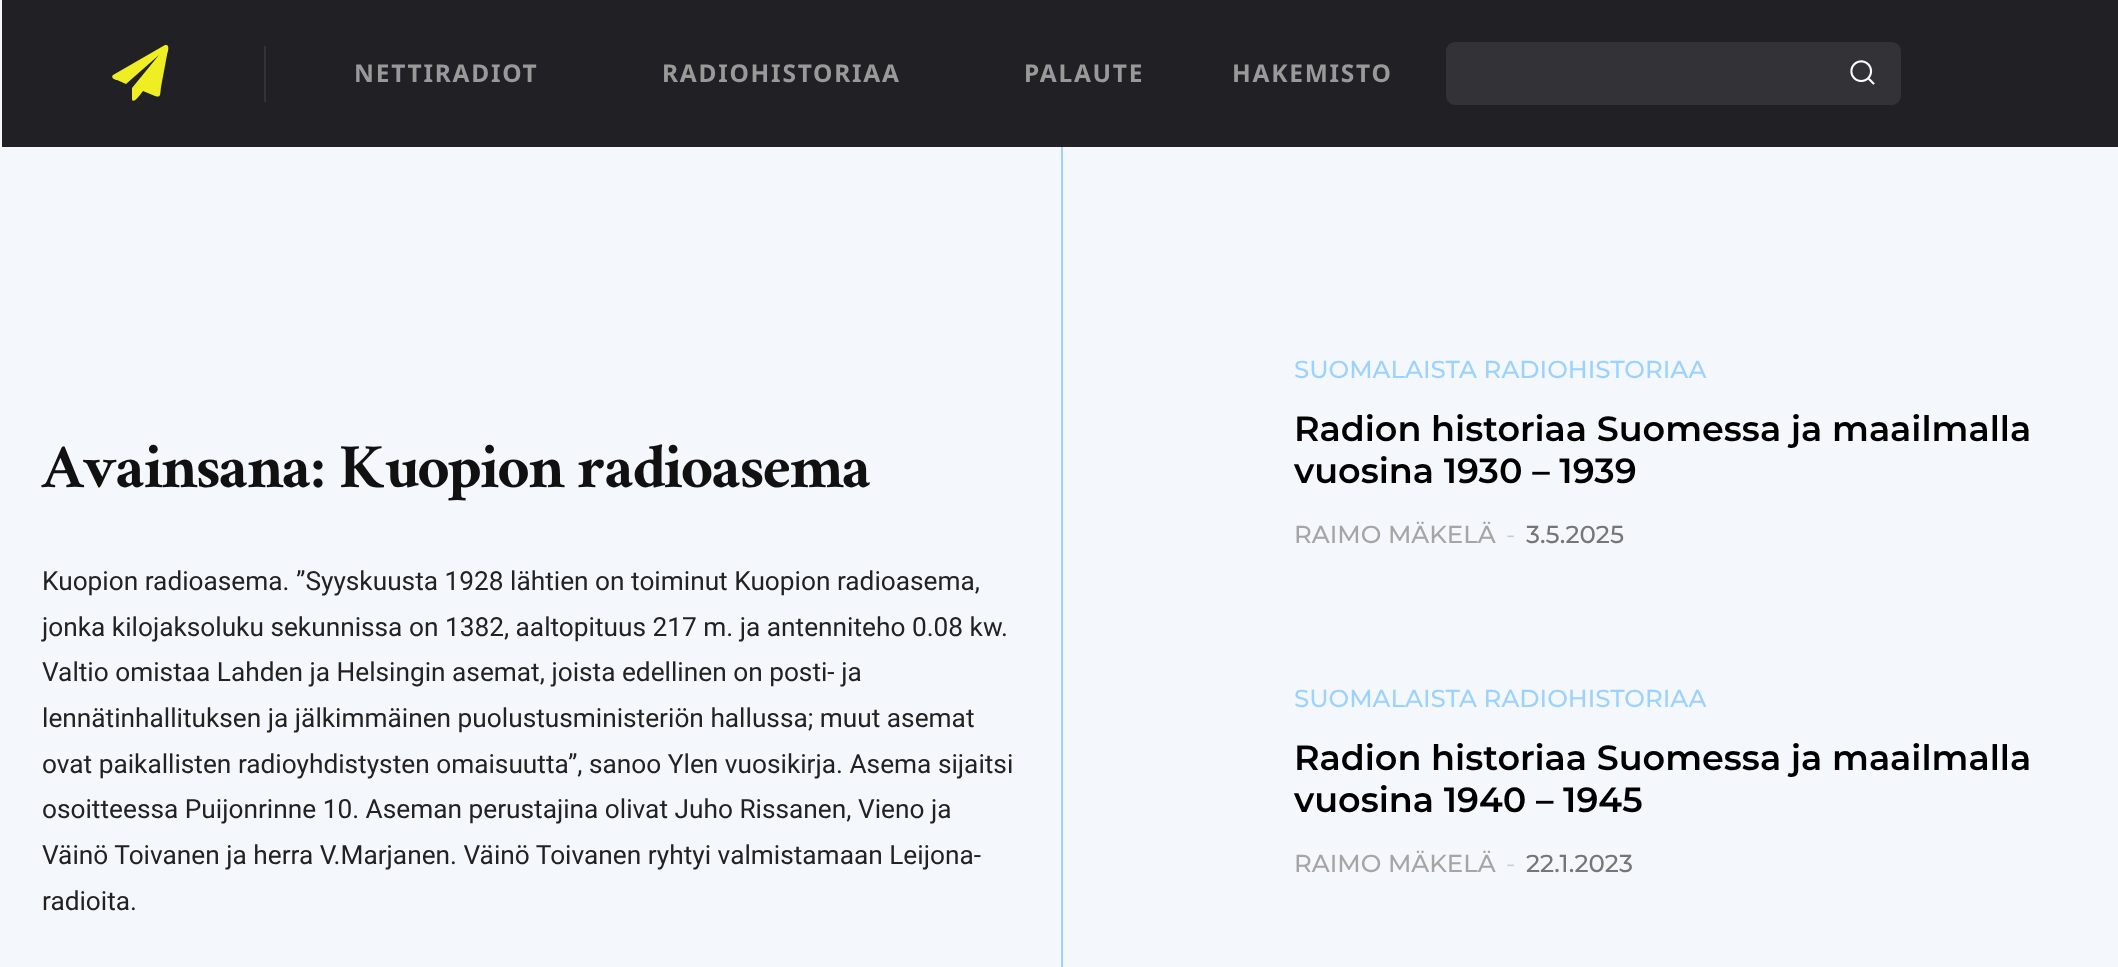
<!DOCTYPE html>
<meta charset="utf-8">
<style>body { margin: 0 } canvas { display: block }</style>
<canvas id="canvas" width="2118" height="967"></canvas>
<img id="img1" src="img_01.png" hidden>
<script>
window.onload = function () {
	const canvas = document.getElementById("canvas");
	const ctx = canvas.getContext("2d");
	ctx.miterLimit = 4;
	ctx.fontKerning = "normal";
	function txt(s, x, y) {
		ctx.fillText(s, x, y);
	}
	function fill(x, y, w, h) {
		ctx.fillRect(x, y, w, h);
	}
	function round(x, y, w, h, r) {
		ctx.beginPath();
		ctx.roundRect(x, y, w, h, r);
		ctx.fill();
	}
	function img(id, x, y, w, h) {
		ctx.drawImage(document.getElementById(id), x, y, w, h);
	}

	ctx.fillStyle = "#F4F7FC";
	fill(0, 0, 2118, 967);
	ctx.fillStyle = "#212025";
	fill(2, 0, 2116, 147);
	ctx.fillStyle = "#333237";
	fill(264, 46, 2, 56);
	ctx.fillStyle = "#EEEE22";
	ctx.beginPath();
	ctx.moveTo(167, 45);
	ctx.lineTo(165, 45);
	ctx.lineTo(113, 75);
	ctx.bezierCurveTo(110, 78, 116, 80, 117, 80);
	ctx.lineTo(126, 84);
	ctx.lineTo(159, 55);
	ctx.lineTo(132, 88);
	ctx.lineTo(132, 99);
	ctx.bezierCurveTo(133, 105, 140, 95, 143, 91);
	ctx.lineTo(155, 96);
	ctx.bezierCurveTo(161, 98, 160, 95, 161, 87);
	ctx.lineTo(167, 55);
	ctx.bezierCurveTo(167, 54, 170, 47, 167, 45);
	ctx.closePath();
	ctx.fill();
	ctx.fillStyle = "#333237";
	round(1446, 42, 455, 63, 9);
	img("img1", 1850, 60, 25, 25);
	ctx.fillStyle = "#9BD2FF";
	fill(1061, 147, 2, 820);
	ctx.letterSpacing = "1.75px";
	ctx.font = "bold 24.5px Noto Sans";
	ctx.fillStyle = "#999999";
	txt("NETTIRADIOT", 354, 82);
	txt("RADIOHISTORIAA", 662, 82);
	txt("PALAUTE", 1024, 82);
	txt("HAKEMISTO", 1232, 82);
	ctx.letterSpacing = "0px";
	ctx.font = "70px Ramaraja";
	ctx.fillStyle = "#111111";
	txt("Avainsana: Kuopion radioasema", 42, 487);
	ctx.font = "26.25px Roboto";
	ctx.fillStyle = "#222222";
	txt("Kuopion radioasema. ”Syyskuusta 1928 lähtien on toiminut Kuopion radioasema,", 42, 590);
	txt("jonka kilojaksoluku sekunnissa on 1382, aaltopituus 217 m. ja antenniteho 0.08 kw.", 42, 636);
	txt("Valtio omistaa Lahden ja Helsingin asemat, joista edellinen on posti- ja", 42, 681);
	txt("lennätinhallituksen ja jälkimmäinen puolustusministeriön hallussa; muut asemat", 42, 727);
	txt("ovat paikallisten radioyhdistysten omaisuutta”, sanoo Ylen vuosikirja. Asema sijaitsi", 42, 773);
	txt("osoitteessa Puijonrinne 10. Aseman perustajina olivat Juho Rissanen, Vieno ja", 42, 818);
	txt("Väinö Toivanen ja herra V.Marjanen. Väinö Toivanen ryhtyi valmistamaan Leijona-", 42, 864);
	txt("radioita.", 42, 910);
	ctx.font = "500 24.5px Montserrat";
	ctx.fillStyle = "#9BD2FF";
	txt("SUOMALAISTA RADIOHISTORIAA", 1294, 378);
	ctx.font = "600 35px Montserrat";
	ctx.fillStyle = "#000000";
	txt("Radion historiaa Suomessa ja maailmalla", 1294, 441);
	txt("vuosina 1930 – 1939", 1294, 483);
	ctx.font = "500 24.5px Montserrat";
	ctx.fillStyle = "#A5A5A5";
	txt("RAIMO MÄKELÄ", 1294, 543);
	ctx.font = "24.5px Montserrat";
	ctx.fillStyle = "#CCCCCC";
	txt("-", 1506, 543);
	ctx.font = "500 24.5px Montserrat";
	ctx.fillStyle = "#767676";
	txt("3.5.2025", 1526, 543);
	ctx.fillStyle = "#9BD2FF";
	txt("SUOMALAISTA RADIOHISTORIAA", 1294, 707);
	ctx.font = "600 35px Montserrat";
	ctx.fillStyle = "#000000";
	txt("Radion historiaa Suomessa ja maailmalla", 1294, 770);
	txt("vuosina 1940 – 1945", 1294, 812);
	ctx.font = "500 24.5px Montserrat";
	ctx.fillStyle = "#A5A5A5";
	txt("RAIMO MÄKELÄ", 1294, 872);
	ctx.font = "24.5px Montserrat";
	ctx.fillStyle = "#CCCCCC";
	txt("-", 1506, 872);
	ctx.font = "500 24.5px Montserrat";
	ctx.fillStyle = "#767676";
	txt("22.1.2023", 1526, 872);
};
</script>
